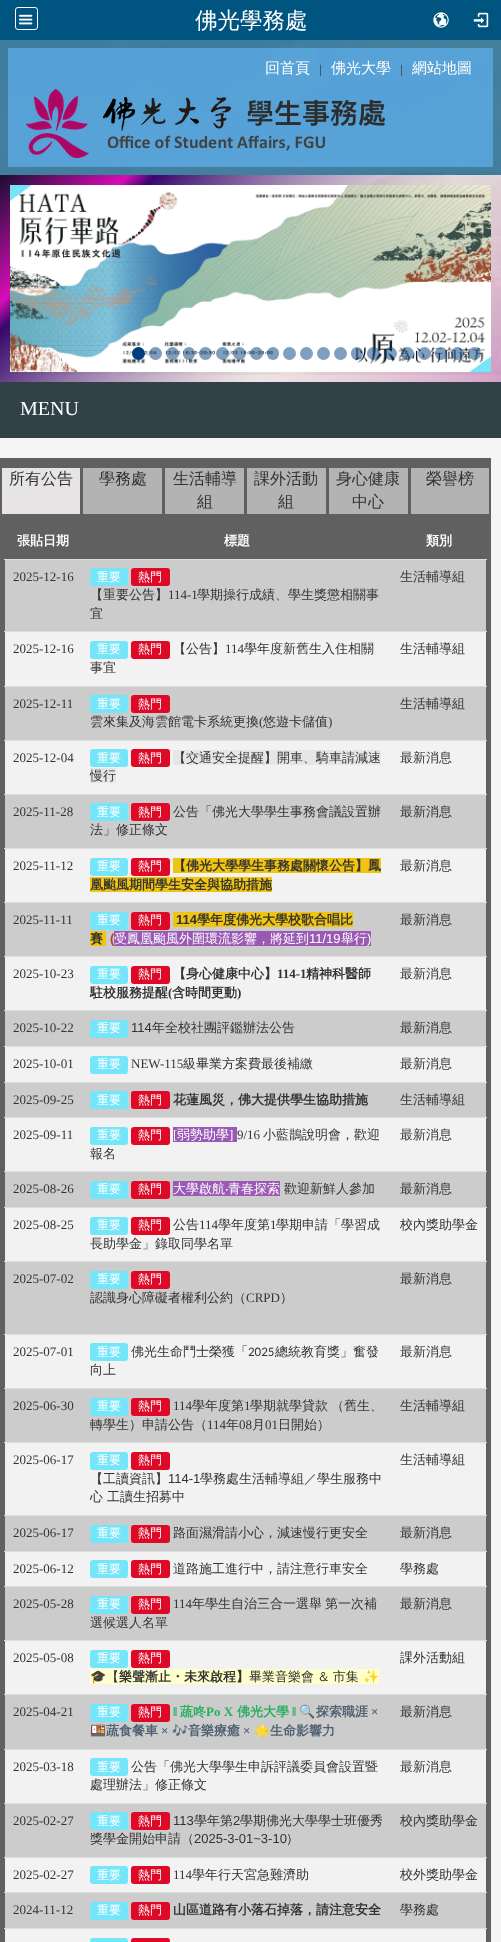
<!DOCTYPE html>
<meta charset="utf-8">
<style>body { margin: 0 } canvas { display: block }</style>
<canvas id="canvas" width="501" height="1942"></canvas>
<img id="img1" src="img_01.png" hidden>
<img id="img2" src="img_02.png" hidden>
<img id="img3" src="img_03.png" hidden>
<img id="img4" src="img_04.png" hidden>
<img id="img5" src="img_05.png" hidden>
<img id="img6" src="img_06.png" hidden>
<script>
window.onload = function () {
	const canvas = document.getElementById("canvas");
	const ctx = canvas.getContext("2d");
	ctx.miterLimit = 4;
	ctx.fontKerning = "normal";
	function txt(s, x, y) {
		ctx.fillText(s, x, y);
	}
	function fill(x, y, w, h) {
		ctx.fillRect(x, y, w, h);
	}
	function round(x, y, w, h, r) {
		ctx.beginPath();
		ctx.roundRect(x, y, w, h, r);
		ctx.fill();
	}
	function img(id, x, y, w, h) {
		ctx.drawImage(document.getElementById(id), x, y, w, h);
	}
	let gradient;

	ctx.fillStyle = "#DDDDDD";
	fill(0, 0, 501, 1942);
	ctx.fillStyle = "#005480";
	fill(0, 0, 501, 40);
	ctx.beginPath();
	ctx.roundRect(15.5, 7.5, 22, 22, 2.5);
	ctx.strokeStyle = "#FFFFFF";
	ctx.stroke();
	img("img1", 18, 14, 15, 11);
	img("img2", 433, 12, 16, 16);
	img("img3", 473, 12, 16, 16);
	img("img4", 0, 40, 501, 335);
	ctx.fillStyle = "rgba(0, 84, 128, 0.7)";
	fill(0, 40, 501, 135);
	ctx.fillStyle = "rgba(96, 176, 240, 0.7)";
	fill(8, 48, 485, 119);
	img("img5", 26, 89, 359, 69);
	gradient = ctx.createLinearGradient(73, 102, 428, 456);
	gradient.addColorStop(0, "#190E32");
	gradient.addColorStop(0.18, "#D70DB5");
	gradient.addColorStop(0.22, "#37076C");
	gradient.addColorStop(0.65, "rgba(255, 235, 235, 0.5)");
	gradient.addColorStop(1, "rgba(209, 139, 194, 0.75)");
	ctx.fillStyle = gradient;
	fill(0, 175, 501, 207);
	img("img6", 10, 185, 481, 187);
	ctx.save();
	ctx.beginPath();
	ctx.rect(10, 185, 481, 187);
	ctx.clip();
	ctx.fillStyle = "#75E5F9";
	ctx.beginPath();
	ctx.moveTo(-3, 185.5);
	ctx.lineTo(21.5, 168);
	ctx.lineTo(33, 184);
	ctx.lineTo(8.5, 202);
	ctx.closePath();
	ctx.fill();
	ctx.beginPath();
	ctx.moveTo(468, 373);
	ctx.lineTo(492.5, 355.5);
	ctx.lineTo(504, 371.5);
	ctx.lineTo(479.5, 389.5);
	ctx.closePath();
	ctx.fill();
	ctx.restore();
	ctx.fillStyle = "#003D7E";
	ctx.beginPath();
	ctx.arc(138.5, 353.5, 6.5, 0, Math.PI * 2);
	ctx.fill();
	ctx.fillStyle = "rgba(0, 61, 126, 0.5)";
	ctx.beginPath();
	ctx.arc(155.5, 353.5, 6.5, 0, Math.PI * 2);
	ctx.fill();
	ctx.beginPath();
	ctx.arc(172.5, 353.5, 6.5, 0, Math.PI * 2);
	ctx.fill();
	round(183, 347, 12, 13, 6);
	ctx.beginPath();
	ctx.arc(205.5, 353.5, 6.5, 0, Math.PI * 2);
	ctx.fill();
	ctx.beginPath();
	ctx.arc(222.5, 353.5, 6.5, 0, Math.PI * 2);
	ctx.fill();
	ctx.beginPath();
	ctx.arc(239.5, 353.5, 6.5, 0, Math.PI * 2);
	ctx.fill();
	ctx.beginPath();
	ctx.arc(256.5, 353.5, 6.5, 0, Math.PI * 2);
	ctx.fill();
	round(267, 347, 12, 13, 6);
	ctx.fillStyle = "#809EBF";
	ctx.beginPath();
	ctx.arc(289.5, 353.5, 6.5, 0, Math.PI * 2);
	ctx.fill();
	ctx.beginPath();
	ctx.arc(306.5, 353.5, 6.5, 0, Math.PI * 2);
	ctx.fill();
	ctx.beginPath();
	ctx.arc(323.5, 353.5, 6.5, 0, Math.PI * 2);
	ctx.fill();
	ctx.beginPath();
	ctx.arc(340.5, 353.5, 6.5, 0, Math.PI * 2);
	ctx.fill();
	ctx.fillStyle = "rgba(0, 61, 126, 0.5)";
	round(351, 347, 12, 13, 6);
	ctx.beginPath();
	ctx.arc(373.5, 353.5, 6.5, 0, Math.PI * 2);
	ctx.fill();
	ctx.beginPath();
	ctx.arc(390.5, 353.5, 6.5, 0, Math.PI * 2);
	ctx.fill();
	ctx.beginPath();
	ctx.arc(407.5, 353.5, 6.5, 0, Math.PI * 2);
	ctx.fill();
	ctx.beginPath();
	ctx.arc(424.5, 353.5, 6.5, 0, Math.PI * 2);
	ctx.fill();
	round(435, 347, 12, 13, 6);
	ctx.beginPath();
	ctx.arc(457.5, 353.5, 6.5, 0, Math.PI * 2);
	ctx.fill();
	ctx.beginPath();
	ctx.arc(474.5, 353.5, 6.5, 0, Math.PI * 2);
	ctx.fill();
	ctx.fillStyle = "#F5F5F5";
	fill(0, 438, 501, 1504);
	ctx.fillStyle = "#314148";
	fill(0, 382, 501, 56);
	ctx.fillStyle = "#606060";
	fill(0, 458, 491, 1484);
	ctx.fillStyle = "#E6E4E4";
	fill(2, 468, 78, 46);
	ctx.fillStyle = "#B3B3B3";
	fill(83, 468, 79, 46);
	fill(165, 468, 79, 46);
	fill(247, 468, 79, 46);
	fill(329, 468, 79, 46);
	fill(411, 468, 78, 46);
	ctx.fillStyle = "#CCCCCC";
	fill(5, 560, 481, 1368);
	ctx.fillStyle = "#75E5F9";
	round(90, 568, 38, 18, 3);
	ctx.fillStyle = "#DE0926";
	round(131, 568, 39, 18, 3);
	ctx.fillStyle = "#DDDDDD";
	fill(4, 559, 483, 1);
	ctx.fillStyle = "#F2F2F2";
	fill(5, 632, 481, 54);
	ctx.fillStyle = "#75E5F9";
	round(90, 641, 38, 18, 3);
	ctx.fillStyle = "#DE0926";
	round(131, 641, 39, 18, 3);
	ctx.fillStyle = "#DDDDDD";
	fill(4, 631, 483, 1);
	ctx.fillStyle = "#75E5F9";
	round(90, 695, 38, 18, 3);
	ctx.fillStyle = "#DE0926";
	round(131, 695, 39, 18, 3);
	ctx.fillStyle = "#DDDDDD";
	fill(4, 686, 483, 1);
	ctx.fillStyle = "#F2F2F2";
	fill(5, 741, 481, 53);
	ctx.fillStyle = "#75E5F9";
	round(90, 749, 38, 18, 3);
	ctx.fillStyle = "#DE0926";
	round(131, 749, 39, 18, 3);
	ctx.fillStyle = "#E6E6E6";
	fill(173, 750, 208, 15);
	fill(90, 768, 26, 15);
	ctx.fillStyle = "#DDDDDD";
	fill(4, 740, 483, 1);
	ctx.fillStyle = "#75E5F9";
	round(90, 803, 38, 18, 3);
	ctx.fillStyle = "#DE0926";
	round(131, 803, 39, 18, 3);
	ctx.fillStyle = "#DDDDDD";
	fill(4, 794, 483, 1);
	ctx.fillStyle = "#F2F2F2";
	fill(5, 849, 481, 53);
	ctx.fillStyle = "#75E5F9";
	round(90, 858, 38, 18, 3);
	ctx.fillStyle = "#DE0926";
	round(131, 858, 39, 18, 3);
	ctx.fillStyle = "#F1C40F";
	fill(173, 858, 208, 15);
	fill(90, 877, 182, 15);
	ctx.fillStyle = "#DDDDDD";
	fill(4, 848, 483, 1);
	ctx.fillStyle = "#75E5F9";
	round(90, 912, 38, 18, 3);
	ctx.fillStyle = "#DE0926";
	round(131, 912, 39, 18, 3);
	ctx.fillStyle = "#F1C40F";
	fill(173, 912, 180, 15);
	fill(90, 931, 16, 15);
	ctx.fillStyle = "#DDDDDD";
	fill(4, 902, 483, 1);
	ctx.fillStyle = "#F2F2F2";
	fill(5, 957, 481, 53);
	ctx.fillStyle = "#75E5F9";
	round(90, 966, 38, 18, 3);
	ctx.fillStyle = "#DE0926";
	round(131, 966, 39, 18, 3);
	ctx.fillStyle = "#DDDDDD";
	fill(4, 956, 483, 1);
	ctx.fillStyle = "#75E5F9";
	round(90, 1020, 38, 18, 3);
	ctx.fillStyle = "#DDDDDD";
	fill(4, 1010, 483, 1);
	ctx.fillStyle = "#F2F2F2";
	fill(5, 1047, 481, 35);
	ctx.fillStyle = "#75E5F9";
	round(90, 1056, 38, 18, 3);
	ctx.fillStyle = "#DDDDDD";
	fill(4, 1046, 483, 1);
	ctx.fillStyle = "#75E5F9";
	round(90, 1091, 38, 18, 3);
	ctx.fillStyle = "#DE0926";
	round(131, 1091, 39, 18, 3);
	ctx.fillStyle = "#DDDDDD";
	fill(4, 1082, 483, 1);
	ctx.fillStyle = "#F2F2F2";
	fill(5, 1118, 481, 53);
	ctx.fillStyle = "#75E5F9";
	round(90, 1127, 38, 18, 3);
	ctx.fillStyle = "#DE0926";
	round(131, 1127, 39, 18, 3);
	ctx.fillStyle = "#9B59B6";
	fill(173, 1127, 64, 15);
	ctx.fillStyle = "#DDDDDD";
	fill(4, 1117, 483, 1);
	ctx.fillStyle = "#75E5F9";
	round(90, 1181, 38, 18, 3);
	ctx.fillStyle = "#DE0926";
	round(131, 1181, 39, 18, 3);
	ctx.fillStyle = "#9B59B6";
	fill(173, 1181, 107, 15);
	ctx.fillStyle = "#DDDDDD";
	fill(4, 1171, 483, 1);
	ctx.fillStyle = "#F2F2F2";
	fill(5, 1208, 481, 53);
	ctx.fillStyle = "#75E5F9";
	round(90, 1217, 38, 18, 3);
	ctx.fillStyle = "#DE0926";
	round(131, 1217, 39, 18, 3);
	ctx.fillStyle = "#DDDDDD";
	fill(4, 1207, 483, 1);
	ctx.fillStyle = "#75E5F9";
	round(90, 1271, 38, 18, 3);
	ctx.fillStyle = "#DE0926";
	round(131, 1271, 39, 18, 3);
	ctx.fillStyle = "#DDDDDD";
	fill(4, 1261, 483, 1);
	ctx.fillStyle = "#F2F2F2";
	fill(5, 1335, 481, 53);
	ctx.fillStyle = "#75E5F9";
	round(90, 1343, 38, 18, 3);
	ctx.fillStyle = "#DDDDDD";
	fill(4, 1334, 483, 1);
	ctx.fillStyle = "#75E5F9";
	round(90, 1398, 38, 18, 3);
	ctx.fillStyle = "#DE0926";
	round(131, 1398, 39, 18, 3);
	ctx.fillStyle = "#DDDDDD";
	fill(4, 1388, 483, 1);
	ctx.fillStyle = "#F2F2F2";
	fill(5, 1443, 481, 72);
	ctx.fillStyle = "#75E5F9";
	round(90, 1452, 38, 18, 3);
	ctx.fillStyle = "#DE0926";
	round(131, 1452, 39, 18, 3);
	ctx.fillStyle = "#DDDDDD";
	fill(4, 1442, 483, 1);
	ctx.fillStyle = "#75E5F9";
	round(90, 1525, 38, 18, 3);
	ctx.fillStyle = "#DE0926";
	round(131, 1525, 39, 18, 3);
	ctx.fillStyle = "#DDDDDD";
	fill(4, 1515, 483, 1);
	ctx.fillStyle = "#F2F2F2";
	fill(5, 1552, 481, 34);
	ctx.fillStyle = "#75E5F9";
	round(90, 1560, 38, 18, 3);
	ctx.fillStyle = "#DE0926";
	round(131, 1560, 39, 18, 3);
	ctx.fillStyle = "#DDDDDD";
	fill(4, 1551, 483, 1);
	ctx.fillStyle = "#75E5F9";
	round(90, 1596, 38, 18, 3);
	ctx.fillStyle = "#DE0926";
	round(131, 1596, 39, 18, 3);
	ctx.fillStyle = "#DDDDDD";
	fill(4, 1586, 483, 1);
	ctx.fillStyle = "#F2F2F2";
	fill(5, 1641, 481, 53);
	ctx.fillStyle = "#75E5F9";
	round(90, 1650, 38, 18, 3);
	ctx.fillStyle = "#DE0926";
	round(131, 1650, 39, 18, 3);
	ctx.fillStyle = "#FFFFCC";
	fill(90, 1669, 289, 15);
	ctx.fillStyle = "#DDDDDD";
	fill(4, 1640, 483, 1);
	ctx.fillStyle = "#75E5F9";
	round(90, 1704, 38, 18, 3);
	ctx.fillStyle = "#DE0926";
	round(131, 1704, 39, 18, 3);
	ctx.fillStyle = "#DDDDDD";
	fill(4, 1694, 483, 1);
	ctx.fillStyle = "#F2F2F2";
	fill(5, 1750, 481, 53);
	ctx.fillStyle = "#75E5F9";
	round(90, 1758, 38, 18, 3);
	ctx.fillStyle = "#DDDDDD";
	fill(4, 1749, 483, 1);
	ctx.fillStyle = "#75E5F9";
	round(90, 1812, 38, 18, 3);
	ctx.fillStyle = "#DE0926";
	round(131, 1812, 39, 18, 3);
	ctx.fillStyle = "#DDDDDD";
	fill(4, 1803, 483, 1);
	ctx.fillStyle = "#F2F2F2";
	fill(5, 1858, 481, 34);
	ctx.fillStyle = "#75E5F9";
	round(90, 1866, 38, 18, 3);
	ctx.fillStyle = "#DE0926";
	round(131, 1866, 39, 18, 3);
	ctx.fillStyle = "#DDDDDD";
	fill(4, 1857, 483, 1);
	ctx.fillStyle = "#75E5F9";
	round(90, 1902, 38, 18, 3);
	ctx.fillStyle = "#DE0926";
	round(131, 1902, 39, 18, 3);
	ctx.fillStyle = "#DDDDDD";
	fill(4, 1892, 483, 1);
	ctx.fillStyle = "#F2F2F2";
	fill(5, 1929, 481, 13);
	ctx.fillStyle = "#DDDDDD";
	fill(4, 1928, 483, 1);
	ctx.fillStyle = "#75E5F9";
	round(90, 1938, 38, 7, 3);
	ctx.fillStyle = "#DE0926";
	round(131, 1938, 39, 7, 3);
	ctx.font = "500 22.5px WenQuanYi Zen Hei";
	ctx.fillStyle = "#FFFFFF";
	txt("佛光學務處", 195, 28);
	ctx.font = "500 15px WenQuanYi Zen Hei";
	txt("回首頁", 265, 73);
	ctx.font = "500 11px WenQuanYi Zen Hei";
	ctx.fillStyle = "#333333";
	txt("｜", 315, 73);
	ctx.font = "500 15px WenQuanYi Zen Hei";
	ctx.fillStyle = "#FFFFFF";
	txt("佛光大學", 331, 73);
	ctx.font = "500 11px WenQuanYi Zen Hei";
	ctx.fillStyle = "#333333";
	txt("｜", 396, 73);
	ctx.font = "500 15px WenQuanYi Zen Hei";
	ctx.fillStyle = "#FFFFFF";
	txt("網站地圖", 412, 73);
	ctx.font = "20px Liberation Serif";
	txt("MENU", 20, 415);
	ctx.font = "500 16px WenQuanYi Zen Hei";
	ctx.fillStyle = "#333333";
	txt("所有公告", 9, 484);
	txt("學務處", 99, 484);
	txt("生活輔導", 173, 484);
	txt("組", 197, 507);
	txt("課外活動", 254, 484);
	txt("組", 278, 507);
	txt("身心健康", 336, 484);
	txt("中心", 352, 507);
	txt("榮譽榜", 426, 484);
	ctx.font = "bold 13px WenQuanYi Zen Hei";
	ctx.fillStyle = "#FFFFFF";
	txt("張貼日期", 17, 545);
	txt("標題", 224, 545);
	txt("類別", 426, 545);
	ctx.font = "13px Liberation Serif";
	ctx.fillStyle = "#333333";
	txt("2025-12-16", 13, 581);
	ctx.font = "500 12px WenQuanYi Zen Hei";
	ctx.fillStyle = "#FFFFFF";
	txt("重要", 97, 581);
	txt("熱門", 138, 581);
	ctx.font = "500 13px WenQuanYi Zen Hei";
	ctx.fillStyle = "#333333";
	txt("【重要公告】", 90, 599);
	ctx.font = "13px Liberation Serif";
	txt("114-1", 168, 599);
	ctx.font = "500 13px WenQuanYi Zen Hei";
	txt("學期操行成績、學生獎懲相關事", 197, 599);
	txt("宜", 90, 618);
	txt("生活輔導組", 400, 581);
	ctx.font = "13px Liberation Serif";
	txt("2025-12-16", 13, 653);
	ctx.font = "500 12px WenQuanYi Zen Hei";
	ctx.fillStyle = "#FFFFFF";
	txt("重要", 97, 653);
	txt("熱門", 138, 653);
	ctx.font = "500 13px WenQuanYi Zen Hei";
	ctx.fillStyle = "#333333";
	txt("【公告】", 173, 653);
	ctx.font = "13px Liberation Serif";
	txt("114", 225, 653);
	ctx.font = "500 13px WenQuanYi Zen Hei";
	txt("學年度新舊生入住相關", 244, 653);
	txt("事宜", 90, 672);
	txt("生活輔導組", 400, 653);
	ctx.font = "13px Liberation Serif";
	txt("2025-12-11", 13, 708);
	ctx.font = "500 12px WenQuanYi Zen Hei";
	ctx.fillStyle = "#FFFFFF";
	txt("重要", 97, 708);
	txt("熱門", 138, 708);
	ctx.font = "500 13px WenQuanYi Zen Hei";
	ctx.fillStyle = "#333333";
	txt("雲來集及海雲館電卡系統更換", 90, 726);
	ctx.font = "13px Liberation Serif";
	txt("(", 259, 726);
	ctx.font = "500 13px WenQuanYi Zen Hei";
	txt("悠遊卡儲值", 263, 726);
	ctx.font = "13px Liberation Serif";
	txt(")", 328, 726);
	ctx.font = "500 13px WenQuanYi Zen Hei";
	txt("生活輔導組", 400, 708);
	ctx.font = "13px Liberation Serif";
	txt("2025-12-04", 13, 762);
	ctx.font = "500 12px WenQuanYi Zen Hei";
	ctx.fillStyle = "#FFFFFF";
	txt("重要", 97, 762);
	txt("熱門", 138, 762);
	ctx.font = "500 13px WenQuanYi Zen Hei";
	ctx.fillStyle = "#333333";
	txt("【交通安全提醒】開車、騎車請減速", 173, 762);
	txt("慢行", 90, 780);
	txt("最新消息", 400, 762);
	ctx.font = "13px Liberation Serif";
	txt("2025-11-28", 13, 816);
	ctx.font = "500 12px WenQuanYi Zen Hei";
	ctx.fillStyle = "#FFFFFF";
	txt("重要", 97, 816);
	txt("熱門", 138, 816);
	ctx.font = "500 13px WenQuanYi Zen Hei";
	ctx.fillStyle = "#333333";
	txt("公告「佛光大學學生事務會議設置辦", 173, 816);
	txt("法」修正條文", 90, 834);
	txt("最新消息", 400, 816);
	ctx.font = "13px Liberation Serif";
	txt("2025-11-12", 13, 870);
	ctx.font = "500 12px WenQuanYi Zen Hei";
	ctx.fillStyle = "#FFFFFF";
	txt("重要", 97, 870);
	txt("熱門", 138, 870);
	ctx.font = "bold 13px WenQuanYi Zen Hei";
	ctx.fillStyle = "#333333";
	txt("【佛光大學學生事務處關懷公告】鳳", 173, 870);
	txt("凰颱風期間學生安全與協助措施", 90, 889);
	ctx.font = "500 13px WenQuanYi Zen Hei";
	txt("最新消息", 400, 870);
	ctx.font = "13px Liberation Serif";
	txt("2025-11-11", 13, 924);
	ctx.font = "500 12px WenQuanYi Zen Hei";
	ctx.fillStyle = "#FFFFFF";
	txt("重要", 97, 924);
	txt("熱門", 138, 924);
	ctx.font = "bold 13px Liberation Sans";
	ctx.fillStyle = "#333333";
	txt("114", 176, 924);
	ctx.font = "bold 13px WenQuanYi Zen Hei";
	txt("學年度佛光大學校歌合唱比", 197, 924);
	txt("賽", 90, 943);
	ctx.font = "bold 13px Liberation Sans";
	ctx.fillStyle = "#C0392B";
	txt("(", 110, 943);
	ctx.fillStyle = "#9B59B6";
	fill(114, 931, 257, 15);
	ctx.font = "500 13px WenQuanYi Zen Hei";
	ctx.fillStyle = "#FFFFFF";
	txt("受鳳凰颱風外圍環流影響，將延到", 114, 943);
	ctx.font = "13px Liberation Sans";
	txt("11/19", 309, 943);
	ctx.font = "500 13px WenQuanYi Zen Hei";
	txt("舉行", 341, 943);
	ctx.font = "13px Liberation Sans";
	txt(")", 367, 943);
	ctx.font = "500 13px WenQuanYi Zen Hei";
	ctx.fillStyle = "#333333";
	txt("最新消息", 400, 924);
	ctx.font = "13px Liberation Serif";
	txt("2025-10-23", 13, 978);
	ctx.font = "500 12px WenQuanYi Zen Hei";
	ctx.fillStyle = "#FFFFFF";
	txt("重要", 97, 978);
	txt("熱門", 138, 978);
	ctx.font = "bold 13px WenQuanYi Zen Hei";
	ctx.fillStyle = "#333333";
	txt("【身心健康中心】", 173, 978);
	ctx.font = "bold 13px Liberation Serif";
	txt("114-1", 277, 978);
	ctx.font = "bold 13px WenQuanYi Zen Hei";
	txt("精神科醫師", 306, 978);
	txt("駐校服務提醒", 90, 997);
	ctx.font = "bold 13px Liberation Serif";
	txt("(", 168, 997);
	ctx.font = "bold 13px WenQuanYi Zen Hei";
	txt("含時間更動", 172, 997);
	ctx.font = "bold 13px Liberation Serif";
	txt(")", 237, 997);
	ctx.font = "500 13px WenQuanYi Zen Hei";
	txt("最新消息", 400, 978);
	ctx.font = "13px Liberation Serif";
	txt("2025-10-22", 13, 1032);
	ctx.font = "500 12px WenQuanYi Zen Hei";
	ctx.fillStyle = "#FFFFFF";
	txt("重要", 97, 1032);
	ctx.font = "13px Liberation Sans";
	ctx.fillStyle = "#333333";
	txt("114", 131, 1032);
	ctx.font = "500 13px WenQuanYi Zen Hei";
	txt("年全校社團評鑑辦法公告", 152, 1032);
	txt("最新消息", 400, 1032);
	ctx.font = "13px Liberation Serif";
	txt("2025-10-01", 13, 1068);
	ctx.font = "500 12px WenQuanYi Zen Hei";
	ctx.fillStyle = "#FFFFFF";
	txt("重要", 97, 1068);
	ctx.font = "13px Liberation Serif";
	ctx.fillStyle = "#333333";
	txt("NEW-115", 131, 1068);
	ctx.font = "500 13px WenQuanYi Zen Hei";
	txt("級畢業方案費最後補繳", 183, 1068);
	txt("最新消息", 400, 1068);
	ctx.font = "13px Liberation Serif";
	txt("2025-09-25", 13, 1104);
	ctx.font = "500 12px WenQuanYi Zen Hei";
	ctx.fillStyle = "#FFFFFF";
	txt("重要", 97, 1104);
	txt("熱門", 138, 1104);
	ctx.font = "bold 13px WenQuanYi Zen Hei";
	ctx.fillStyle = "#333333";
	txt("花蓮風災，佛大提供學生協助措施", 173, 1104);
	ctx.font = "500 13px WenQuanYi Zen Hei";
	txt("生活輔導組", 400, 1104);
	ctx.font = "13px Liberation Serif";
	txt("2025-09-11", 13, 1139);
	ctx.font = "500 12px WenQuanYi Zen Hei";
	ctx.fillStyle = "#FFFFFF";
	txt("重要", 97, 1139);
	txt("熱門", 138, 1139);
	ctx.font = "13px Liberation Serif";
	txt("[", 173, 1139);
	ctx.font = "500 13px WenQuanYi Zen Hei";
	txt("弱勢助學", 177, 1139);
	ctx.font = "13px Liberation Serif";
	txt("]", 229, 1139);
	ctx.fillStyle = "#333333";
	txt("9/16", 237, 1139);
	ctx.font = "500 13px WenQuanYi Zen Hei";
	txt("小藍鵲說明會，歡迎", 263, 1139);
	txt("報名", 90, 1158);
	txt("最新消息", 400, 1139);
	ctx.font = "13px Liberation Serif";
	txt("2025-08-26", 13, 1193);
	ctx.font = "500 12px WenQuanYi Zen Hei";
	ctx.fillStyle = "#FFFFFF";
	txt("重要", 97, 1193);
	txt("熱門", 138, 1193);
	ctx.font = "500 13px WenQuanYi Zen Hei";
	txt("大學啟航", 173, 1193);
	ctx.font = "13px Noto Sans";
	txt("‧", 225, 1193);
	ctx.font = "500 13px WenQuanYi Zen Hei";
	txt("青春探索", 228, 1193);
	ctx.fillStyle = "#333333";
	txt("歡迎新鮮人參加", 284, 1193);
	txt("最新消息", 400, 1193);
	ctx.font = "13px Liberation Serif";
	txt("2025-08-25", 13, 1229);
	ctx.font = "500 12px WenQuanYi Zen Hei";
	ctx.fillStyle = "#FFFFFF";
	txt("重要", 97, 1229);
	txt("熱門", 138, 1229);
	ctx.font = "500 13px WenQuanYi Zen Hei";
	ctx.fillStyle = "#333333";
	txt("公告", 173, 1229);
	ctx.font = "13px Liberation Serif";
	txt("114", 199, 1229);
	ctx.font = "500 13px WenQuanYi Zen Hei";
	txt("學年度第", 218, 1229);
	ctx.font = "13px Liberation Serif";
	txt("1", 270, 1229);
	ctx.font = "500 13px WenQuanYi Zen Hei";
	txt("學期申請「學習成", 276, 1229);
	txt("長助學金」錄取同學名單", 90, 1248);
	txt("校內獎助學金", 400, 1229);
	ctx.font = "13px Liberation Serif";
	txt("2025-07-02", 13, 1283);
	ctx.font = "500 12px WenQuanYi Zen Hei";
	ctx.fillStyle = "#FFFFFF";
	txt("重要", 97, 1283);
	txt("熱門", 138, 1283);
	ctx.font = "500 13px WenQuanYi Zen Hei";
	ctx.fillStyle = "#333333";
	txt("認識身心障礙者權利公約（", 90, 1302);
	ctx.font = "13px Liberation Serif";
	txt("CRPD", 246, 1302);
	ctx.font = "500 13px WenQuanYi Zen Hei";
	txt("）", 280, 1302);
	txt("最新消息", 400, 1283);
	ctx.font = "13px Liberation Serif";
	txt("2025-07-01", 13, 1356);
	ctx.font = "500 12px WenQuanYi Zen Hei";
	ctx.fillStyle = "#FFFFFF";
	txt("重要", 97, 1356);
	ctx.font = "500 13px WenQuanYi Zen Hei";
	ctx.fillStyle = "#333333";
	txt("佛光生命鬥士榮獲「", 131, 1356);
	ctx.font = "13px Carlito";
	txt("2025", 248, 1356);
	ctx.font = "500 13px WenQuanYi Zen Hei";
	txt("總統教育獎」奮發", 275, 1356);
	txt("向上", 90, 1374);
	txt("最新消息", 400, 1356);
	ctx.font = "13px Liberation Serif";
	txt("2025-06-30", 13, 1410);
	ctx.font = "500 12px WenQuanYi Zen Hei";
	ctx.fillStyle = "#FFFFFF";
	txt("重要", 97, 1410);
	txt("熱門", 138, 1410);
	ctx.font = "13px Liberation Serif";
	ctx.fillStyle = "#333333";
	txt("114", 173, 1410);
	ctx.font = "500 13px WenQuanYi Zen Hei";
	txt("學年度第", 192, 1410);
	ctx.font = "13px Liberation Serif";
	txt("1", 244, 1410);
	ctx.wordSpacing = "-1px";
	ctx.font = "500 13px WenQuanYi Zen Hei";
	txt("學期就學貸款 （舊生、", 250, 1410);
	ctx.wordSpacing = "0px";
	txt("轉學生）申請公告（", 90, 1429);
	ctx.font = "13px Liberation Serif";
	txt("114", 207, 1429);
	ctx.font = "500 13px WenQuanYi Zen Hei";
	txt("年", 226, 1429);
	ctx.font = "13px Liberation Serif";
	txt("08", 239, 1429);
	ctx.font = "500 13px WenQuanYi Zen Hei";
	txt("月", 252, 1429);
	ctx.font = "13px Liberation Serif";
	txt("01", 265, 1429);
	ctx.font = "500 13px WenQuanYi Zen Hei";
	txt("日開始）", 278, 1429);
	txt("生活輔導組", 400, 1410);
	ctx.font = "13px Liberation Serif";
	txt("2025-06-17", 13, 1464);
	ctx.font = "500 12px WenQuanYi Zen Hei";
	ctx.fillStyle = "#FFFFFF";
	txt("重要", 97, 1464);
	txt("熱門", 138, 1464);
	ctx.font = "500 13px WenQuanYi Zen Hei";
	ctx.fillStyle = "#333333";
	txt("【工讀資訊】", 90, 1483);
	ctx.font = "13px Liberation Sans";
	txt("114-1", 168, 1483);
	ctx.font = "500 13px WenQuanYi Zen Hei";
	txt("學務處生活輔導組／學生服務中", 200, 1483);
	txt("心 工讀生招募中", 90, 1501);
	txt("生活輔導組", 400, 1464);
	ctx.font = "13px Liberation Serif";
	txt("2025-06-17", 13, 1537);
	ctx.font = "500 12px WenQuanYi Zen Hei";
	ctx.fillStyle = "#FFFFFF";
	txt("重要", 97, 1537);
	txt("熱門", 138, 1537);
	ctx.font = "500 13px WenQuanYi Zen Hei";
	ctx.fillStyle = "#333333";
	txt("路面濕滑請小心，減速慢行更安全", 173, 1537);
	txt("最新消息", 400, 1537);
	ctx.font = "13px Liberation Serif";
	txt("2025-06-12", 13, 1573);
	ctx.font = "500 12px WenQuanYi Zen Hei";
	ctx.fillStyle = "#FFFFFF";
	txt("重要", 97, 1573);
	txt("熱門", 138, 1573);
	ctx.font = "500 13px WenQuanYi Zen Hei";
	ctx.fillStyle = "#333333";
	txt("道路施工進行中，請注意行車安全", 173, 1573);
	txt("學務處", 400, 1573);
	ctx.font = "13px Liberation Serif";
	txt("2025-05-28", 13, 1608);
	ctx.font = "500 12px WenQuanYi Zen Hei";
	ctx.fillStyle = "#FFFFFF";
	txt("重要", 97, 1608);
	txt("熱門", 138, 1608);
	ctx.font = "13px Liberation Serif";
	ctx.fillStyle = "#333333";
	txt("114", 173, 1608);
	ctx.wordSpacing = "-1px";
	ctx.font = "500 13px WenQuanYi Zen Hei";
	txt("年學生自治三合一選舉 第一次補", 192, 1608);
	ctx.wordSpacing = "0px";
	txt("選候選人名單", 90, 1627);
	txt("最新消息", 400, 1608);
	ctx.font = "13px Liberation Serif";
	txt("2025-05-08", 13, 1662);
	ctx.font = "500 12px WenQuanYi Zen Hei";
	ctx.fillStyle = "#FFFFFF";
	txt("重要", 97, 1662);
	txt("熱門", 138, 1662);
	ctx.font = "13px Noto Color Emoji";
	ctx.fillStyle = "#333333";
	txt("🎓", 90, 1681);
	ctx.font = "500 13px WenQuanYi Zen Hei";
	txt("【", 106, 1681);
	ctx.font = "bold 13px WenQuanYi Zen Hei";
	txt("樂聲漸止・未來啟程】", 119, 1681);
	ctx.wordSpacing = "-1px";
	ctx.font = "500 13px WenQuanYi Zen Hei";
	txt("畢業音樂會 ＆ 市集", 249, 1681);
	ctx.wordSpacing = "0px";
	ctx.font = "13px Noto Color Emoji";
	txt("✨", 363, 1681);
	ctx.font = "500 13px WenQuanYi Zen Hei";
	txt("課外活動組", 400, 1662);
	ctx.font = "13px Liberation Serif";
	txt("2025-04-21", 13, 1716);
	ctx.font = "500 12px WenQuanYi Zen Hei";
	ctx.fillStyle = "#FFFFFF";
	txt("重要", 97, 1716);
	txt("熱門", 138, 1716);
	ctx.font = "bold 13px Liberation Serif";
	ctx.fillStyle = "#27AE60";
	txt("‖", 173, 1716);
	ctx.font = "bold 13px WenQuanYi Zen Hei";
	txt("蔬咚", 180, 1716);
	ctx.font = "bold 13px Liberation Serif";
	txt("Po X", 206, 1716);
	ctx.font = "bold 13px WenQuanYi Zen Hei";
	txt("佛光大學", 237, 1716);
	ctx.font = "bold 13px Liberation Serif";
	txt("‖", 292, 1716);
	ctx.font = "bold 13px Noto Color Emoji";
	ctx.fillStyle = "#4E5F70";
	txt("🔍", 299, 1716);
	ctx.font = "bold 13px WenQuanYi Zen Hei";
	txt("探索職涯", 316, 1716);
	ctx.font = "bold 13px Liberation Serif";
	txt("×", 371, 1716);
	ctx.font = "bold 13px Noto Color Emoji";
	txt("🍱", 90, 1735);
	ctx.font = "bold 13px WenQuanYi Zen Hei";
	txt("蔬食餐車", 106, 1735);
	ctx.font = "bold 13px Liberation Serif";
	txt("×", 161, 1735);
	ctx.font = "bold 13px Noto Color Emoji";
	txt("🎶", 172, 1735);
	ctx.font = "bold 13px WenQuanYi Zen Hei";
	txt("音樂療癒", 188, 1735);
	ctx.font = "bold 13px Liberation Serif";
	txt("×", 243, 1735);
	ctx.font = "bold 13px Noto Color Emoji";
	txt("🌟", 254, 1735);
	ctx.font = "bold 13px WenQuanYi Zen Hei";
	txt("生命影響力", 270, 1735);
	ctx.font = "500 13px WenQuanYi Zen Hei";
	ctx.fillStyle = "#333333";
	txt("最新消息", 400, 1716);
	ctx.font = "13px Liberation Serif";
	txt("2025-03-18", 13, 1771);
	ctx.font = "500 12px WenQuanYi Zen Hei";
	ctx.fillStyle = "#FFFFFF";
	txt("重要", 97, 1771);
	ctx.font = "500 13px WenQuanYi Zen Hei";
	ctx.fillStyle = "#333333";
	txt("公告「佛光大學學生申訴評議委員會設置暨", 131, 1771);
	txt("處理辦法」修正條文", 90, 1789);
	txt("最新消息", 400, 1771);
	ctx.font = "13px Liberation Serif";
	txt("2025-02-27", 13, 1825);
	ctx.font = "500 12px WenQuanYi Zen Hei";
	ctx.fillStyle = "#FFFFFF";
	txt("重要", 97, 1825);
	txt("熱門", 138, 1825);
	ctx.font = "13px Liberation Sans";
	ctx.fillStyle = "#333333";
	txt("113", 173, 1825);
	ctx.font = "500 13px WenQuanYi Zen Hei";
	txt("學年第", 194, 1825);
	ctx.font = "13px Liberation Sans";
	txt("2", 233, 1825);
	ctx.font = "500 13px WenQuanYi Zen Hei";
	txt("學期佛光大學學士班優秀", 240, 1825);
	txt("獎學金開始申請（", 90, 1843);
	ctx.font = "13px Liberation Sans";
	txt("2025-3-01~3-10", 194, 1843);
	ctx.font = "500 13px WenQuanYi Zen Hei";
	txt("）", 286, 1843);
	txt("校內獎助學金", 400, 1825);
	ctx.font = "13px Liberation Serif";
	txt("2025-02-27", 13, 1879);
	ctx.font = "500 12px WenQuanYi Zen Hei";
	ctx.fillStyle = "#FFFFFF";
	txt("重要", 97, 1879);
	txt("熱門", 138, 1879);
	ctx.font = "13px Liberation Serif";
	ctx.fillStyle = "#333333";
	txt("114", 173, 1879);
	ctx.font = "500 13px WenQuanYi Zen Hei";
	txt("學年行天宮急難濟助", 192, 1879);
	txt("校外獎助學金", 400, 1879);
	ctx.font = "13px Liberation Serif";
	txt("2024-11-12", 13, 1914);
	ctx.font = "500 12px WenQuanYi Zen Hei";
	ctx.fillStyle = "#FFFFFF";
	txt("重要", 97, 1914);
	txt("熱門", 138, 1914);
	ctx.font = "bold 13px WenQuanYi Zen Hei";
	ctx.fillStyle = "#333333";
	txt("山區道路有小落石掉落，請注意安全", 173, 1914);
	ctx.font = "500 13px WenQuanYi Zen Hei";
	txt("學務處", 400, 1914);
};
</script>
